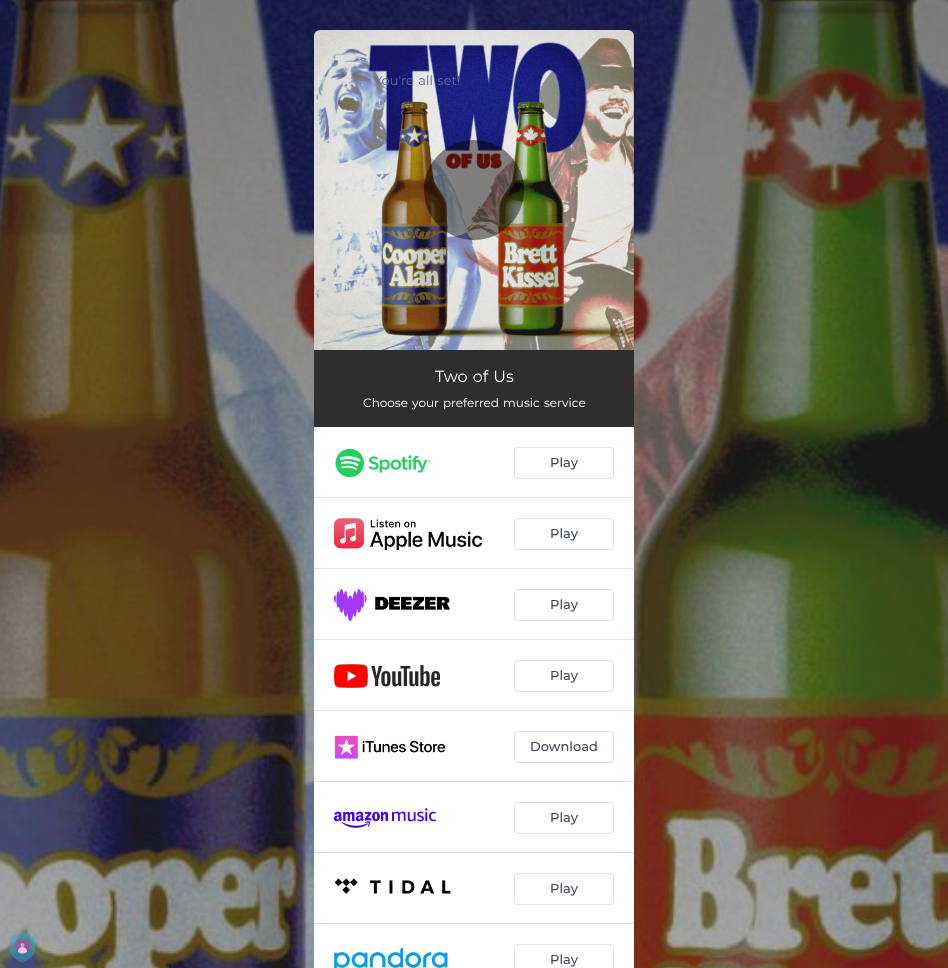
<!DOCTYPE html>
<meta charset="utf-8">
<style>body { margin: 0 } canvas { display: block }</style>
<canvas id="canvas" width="948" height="968"></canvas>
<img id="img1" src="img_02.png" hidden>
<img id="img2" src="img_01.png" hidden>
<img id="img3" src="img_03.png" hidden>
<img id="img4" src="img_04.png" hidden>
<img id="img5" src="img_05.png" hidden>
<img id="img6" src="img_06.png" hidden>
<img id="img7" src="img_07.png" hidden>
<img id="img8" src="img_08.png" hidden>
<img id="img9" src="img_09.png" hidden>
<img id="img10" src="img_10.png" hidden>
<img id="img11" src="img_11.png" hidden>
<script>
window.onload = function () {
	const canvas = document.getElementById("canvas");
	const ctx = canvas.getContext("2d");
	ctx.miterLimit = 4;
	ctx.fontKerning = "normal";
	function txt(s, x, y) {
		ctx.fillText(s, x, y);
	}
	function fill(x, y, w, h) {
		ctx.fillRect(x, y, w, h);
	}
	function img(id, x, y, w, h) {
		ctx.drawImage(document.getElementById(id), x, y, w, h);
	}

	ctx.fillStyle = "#FFFFFF";
	fill(0, 0, 948, 968);
	img("img1", 0, 0, 948, 968);
	img("img2", 10, 930, 25, 33);
	img("img3", 314, 30, 320, 320);
	ctx.fillStyle = "rgba(0, 0, 0, 0.45)";
	ctx.beginPath();
	ctx.arc(474, 190, 50, 0, Math.PI * 2);
	ctx.fill();
	ctx.fillStyle = "#2E2E2E";
	fill(314, 350, 320, 77);
	ctx.fillStyle = "#FFFFFF";
	fill(314, 427, 320, 541);
	ctx.fillStyle = "#E1E1E4";
	fill(314, 497, 320, 1);
	img("img4", 335, 448, 96, 30);
	ctx.beginPath();
	ctx.roundRect(514.5, 447.5, 99, 31, 3.5);
	ctx.strokeStyle = "#E1E1E4";
	ctx.stroke();
	fill(314, 568, 320, 1);
	img("img5", 334, 518, 148, 32);
	ctx.beginPath();
	ctx.roundRect(514.5, 518.5, 99, 31, 3.5);
	ctx.stroke();
	fill(314, 639, 320, 1);
	img("img6", 334, 589, 116, 32);
	ctx.beginPath();
	ctx.roundRect(514.5, 589.5, 99, 31, 3.5);
	ctx.stroke();
	fill(314, 710, 320, 1);
	img("img7", 334, 664, 106, 24);
	ctx.beginPath();
	ctx.roundRect(514.5, 660.5, 99, 31, 3.5);
	ctx.stroke();
	fill(314, 781, 320, 1);
	img("img8", 335, 735, 111, 24);
	ctx.beginPath();
	ctx.roundRect(514.5, 731.5, 99, 31, 3.5);
	ctx.stroke();
	fill(314, 852, 320, 1);
	img("img9", 334, 808, 102, 20);
	ctx.beginPath();
	ctx.roundRect(514.5, 802.5, 99, 31, 3.5);
	ctx.stroke();
	fill(314, 923, 320, 1);
	img("img10", 334, 878, 117, 16);
	ctx.beginPath();
	ctx.roundRect(514.5, 873.5, 99, 31, 3.5);
	ctx.stroke();
	img("img11", 334, 947, 115, 21);
	ctx.beginPath();
	ctx.roundRect(514.5, 944.5, 99, 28, 3.5);
	ctx.stroke();
	ctx.wordSpacing = "1px";
	ctx.font = "13px Montserrat";
	ctx.fillStyle = "#64689D";
	txt("You're all set!", 374, 85);
	ctx.font = "16px Montserrat";
	ctx.fillStyle = "#FFFFFF";
	txt("Two of Us", 435, 382);
	ctx.font = "12px Montserrat";
	txt("Choose your preferred music service", 363, 407);
	ctx.wordSpacing = "0px";
	ctx.font = "500 13px Montserrat";
	ctx.fillStyle = "#414754";
	txt("Play", 550, 467);
	txt("Play", 550, 538);
	txt("Play", 550, 609);
	txt("Play", 550, 680);
	txt("Download", 530, 751);
	txt("Play", 550, 822);
	txt("Play", 550, 893);
	txt("Play", 550, 964);
};
</script>
